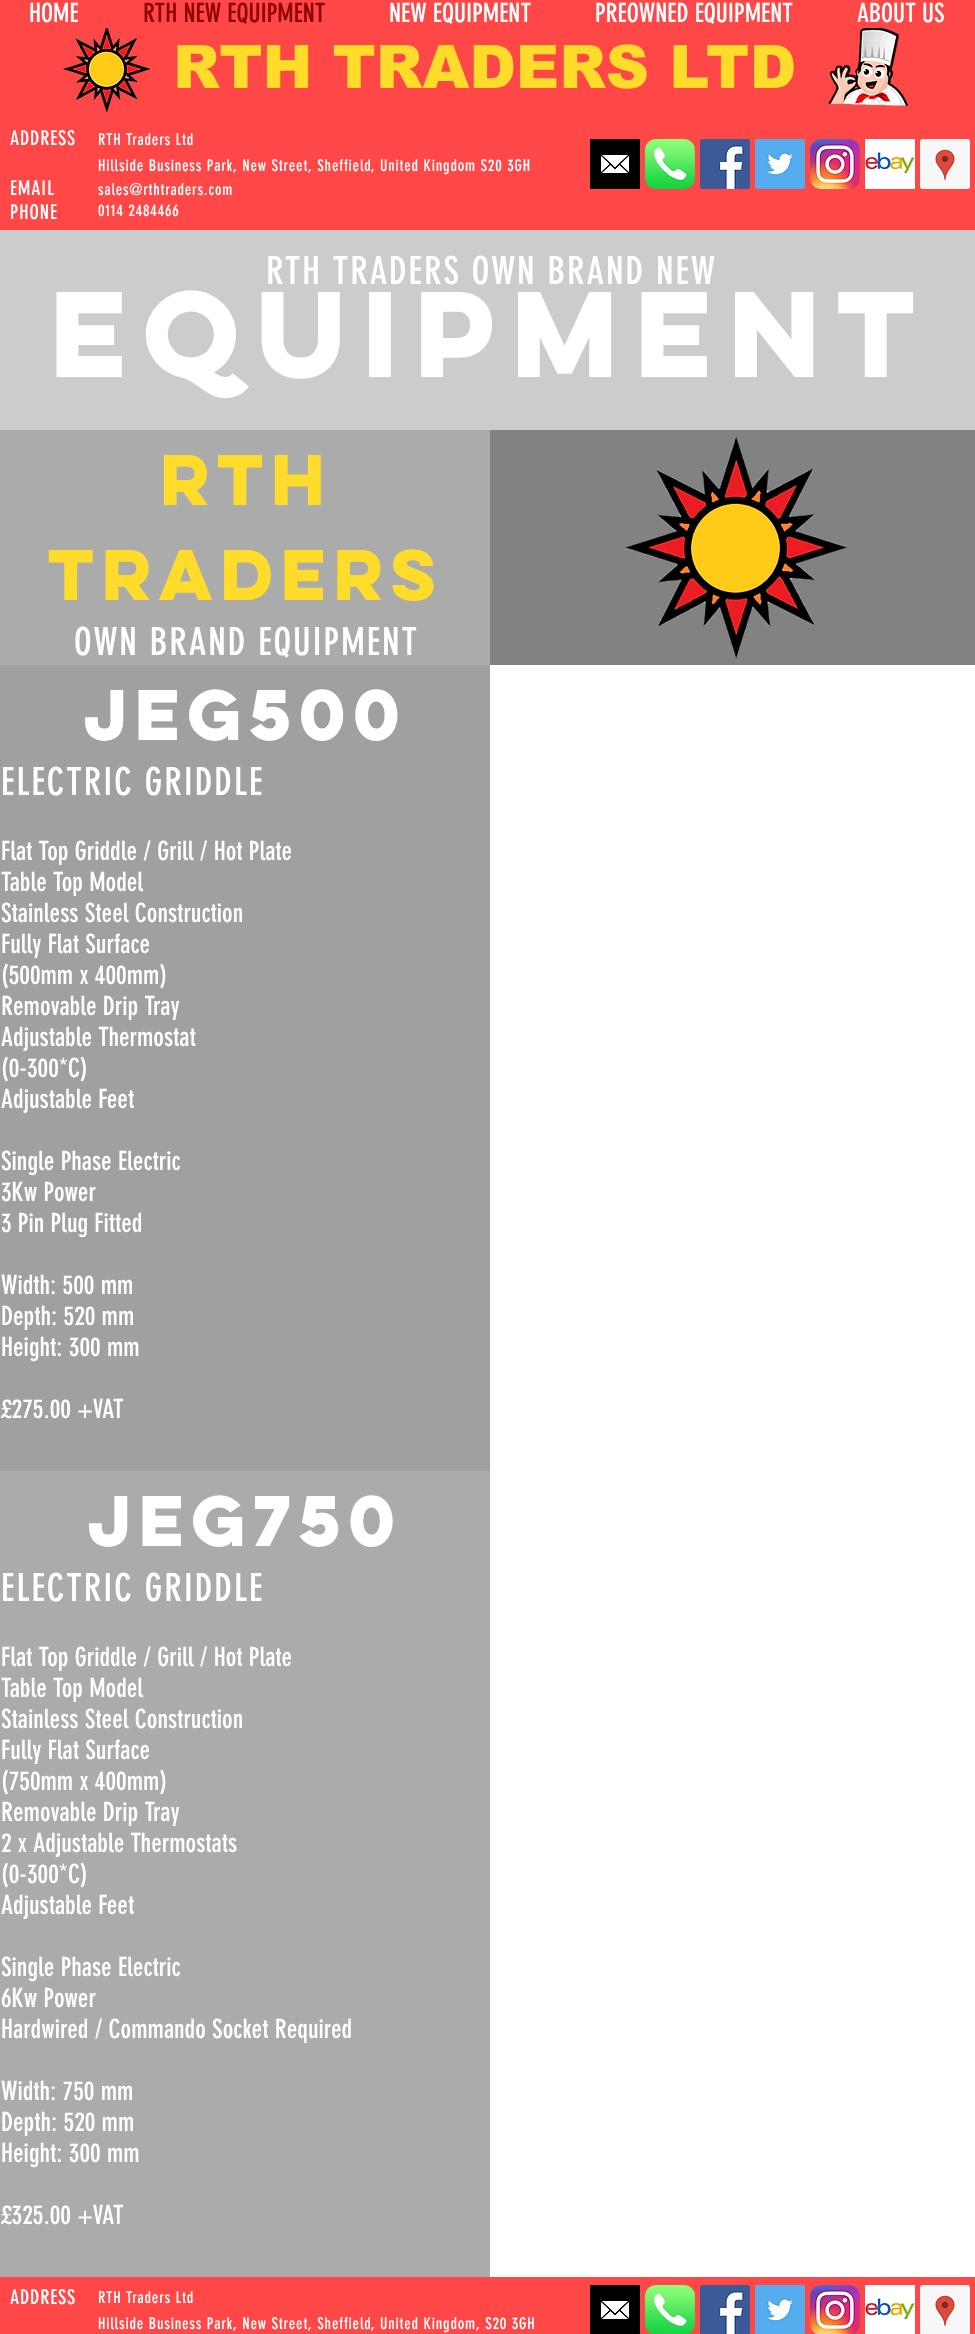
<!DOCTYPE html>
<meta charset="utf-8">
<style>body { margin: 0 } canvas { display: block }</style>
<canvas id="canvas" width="975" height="2334"></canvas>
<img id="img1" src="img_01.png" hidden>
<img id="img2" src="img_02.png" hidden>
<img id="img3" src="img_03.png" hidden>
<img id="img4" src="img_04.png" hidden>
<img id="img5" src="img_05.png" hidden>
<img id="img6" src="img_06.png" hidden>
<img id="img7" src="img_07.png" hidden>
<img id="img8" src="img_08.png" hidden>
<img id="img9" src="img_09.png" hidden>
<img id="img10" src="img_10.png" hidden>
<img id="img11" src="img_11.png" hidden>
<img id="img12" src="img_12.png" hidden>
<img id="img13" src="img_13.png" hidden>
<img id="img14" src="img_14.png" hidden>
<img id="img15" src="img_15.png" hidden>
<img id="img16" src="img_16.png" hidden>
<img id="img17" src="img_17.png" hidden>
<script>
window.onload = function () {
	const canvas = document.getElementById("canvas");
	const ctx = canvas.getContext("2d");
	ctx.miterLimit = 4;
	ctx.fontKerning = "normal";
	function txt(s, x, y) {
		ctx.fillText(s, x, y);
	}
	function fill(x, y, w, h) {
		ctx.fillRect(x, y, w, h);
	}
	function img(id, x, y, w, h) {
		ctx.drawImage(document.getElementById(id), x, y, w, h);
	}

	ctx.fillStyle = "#ABABAB";
	fill(0, 0, 975, 2334);
	ctx.fillStyle = "#FF4747";
	fill(0, 0, 975, 230);
	img("img1", 63, 28, 88, 85);
	img("img2", 828, 28, 81, 78);
	img("img3", 590, 139, 50, 50);
	img("img4", 645, 139, 50, 50);
	img("img5", 700, 139, 50, 50);
	img("img6", 755, 139, 50, 50);
	img("img7", 810, 139, 50, 50);
	img("img8", 865, 139, 50, 50);
	img("img9", 920, 139, 50, 50);
	ctx.fillStyle = "#CCCCCC";
	fill(0, 230, 975, 200);
	ctx.fillStyle = "#828282";
	fill(490, 430, 485, 235);
	img("img10", 625, 436, 222, 223);
	ctx.fillStyle = "#A0A09F";
	fill(0, 665, 490, 806);
	ctx.fillStyle = "#FFFFFF";
	fill(490, 665, 485, 1612);
	ctx.fillStyle = "#FF4747";
	fill(0, 2277, 975, 57);
	img("img11", 590, 2285, 50, 49);
	img("img12", 645, 2285, 50, 49);
	img("img13", 700, 2285, 50, 49);
	img("img14", 755, 2285, 50, 49);
	img("img15", 810, 2285, 50, 49);
	img("img16", 865, 2285, 50, 49);
	img("img17", 920, 2285, 50, 49);
	ctx.font = "26px 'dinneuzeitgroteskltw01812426'";
	ctx.fillStyle = "#FFFFFF";
	txt("HOME", 29, 22);
	ctx.fillStyle = "#8B0000";
	txt("RTH NEW EQUIPMENT", 143, 22);
	ctx.fillStyle = "#FFFFFF";
	txt("NEW EQUIPMENT", 389, 22);
	txt("PREOWNED EQUIPMENT", 595, 22);
	txt("ABOUT US", 857, 22);
	ctx.font = "900 60px arial";
	ctx.fillStyle = "#FFDC2B";
	txt("RTH TRADERS LTD", 173, 88);
	ctx.letterSpacing = "0.8px";
	ctx.font = "20px 'dinneuzeitgroteskltw01812426'";
	ctx.fillStyle = "#FFFFFF";
	txt("ADDRESS", 10, 145);
	ctx.font = "16px 'dinneuzeitgroteskltw01812426'";
	txt("RTH Traders Ltd", 98, 145);
	txt("Hillside Business Park, New Street, Sheffield, United Kingdom S20 3GH", 98, 171);
	ctx.font = "20px 'dinneuzeitgroteskltw01812426'";
	txt("EMAIL", 10, 195);
	ctx.font = "16px 'dinneuzeitgroteskltw01812426'";
	txt("sales@rthtraders.com", 98, 195);
	ctx.letterSpacing = "1px";
	ctx.font = "20px 'dinneuzeitgroteskltw01812426'";
	txt("PHONE", 10, 219);
	ctx.letterSpacing = "0.8px";
	ctx.font = "16px 'dinneuzeitgroteskltw01812426'";
	txt("0114 2484466", 98, 216);
	ctx.letterSpacing = "1.9px";
	ctx.font = "38px 'dinneuzeitgroteskltw01812426'";
	txt("RTH TRADERS OWN BRAND NEW", 266, 284);
	ctx.letterSpacing = "-7.6px";
	ctx.font = "bold 109px 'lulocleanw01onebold'";
	txt("Equipment", 50, 377);
	ctx.letterSpacing = "-6.5px";
	ctx.font = "bold 64px 'lulocleanw01onebold'";
	ctx.fillStyle = "#FFDC2B";
	txt("RTH", 160, 505);
	txt("Traders", 48, 600);
	ctx.letterSpacing = "1.9px";
	ctx.font = "38px 'dinneuzeitgroteskltw01812426'";
	ctx.fillStyle = "#FFFFFF";
	txt("OWN BRAND EQUIPMENT", 74, 655);
	ctx.letterSpacing = "-6.5px";
	ctx.font = "bold 64px 'lulocleanw01onebold'";
	txt("JEG500", 84, 740);
	ctx.letterSpacing = "1.9px";
	ctx.font = "38px 'dinneuzeitgroteskltw01812426'";
	txt("ELECTRIC GRIDDLE", 1, 795);
	ctx.letterSpacing = "0px";
	ctx.font = "26px 'dinneuzeitgroteskltw01812426'";
	txt("Flat Top Griddle / Grill / Hot Plate", 1, 860);
	txt("Table Top Model", 1, 891);
	txt("Stainless Steel Construction", 1, 922);
	txt("Fully Flat Surface", 1, 953);
	txt("(500mm x 400mm)", 1, 984);
	txt("Removable Drip Tray", 1, 1015);
	txt("Adjustable Thermostat", 1, 1046);
	txt("(0-300*C)", 1, 1077);
	txt("Adjustable Feet", 1, 1108);
	txt("Single Phase Electric", 1, 1170);
	txt("3Kw Power", 1, 1201);
	txt("3 Pin Plug Fitted", 1, 1232);
	txt("Width: 500 mm", 1, 1294);
	txt("Depth: 520 mm", 1, 1325);
	txt("Height: 300 mm", 1, 1356);
	txt("£275.00 +VAT", 1, 1418);
	ctx.letterSpacing = "-6.5px";
	ctx.font = "bold 64px 'lulocleanw01onebold'";
	txt("JEG750", 88, 1546);
	ctx.letterSpacing = "1.9px";
	ctx.font = "38px 'dinneuzeitgroteskltw01812426'";
	txt("ELECTRIC GRIDDLE", 1, 1601);
	ctx.letterSpacing = "0px";
	ctx.font = "26px 'dinneuzeitgroteskltw01812426'";
	txt("Flat Top Griddle / Grill / Hot Plate", 1, 1666);
	txt("Table Top Model", 1, 1697);
	txt("Stainless Steel Construction", 1, 1728);
	txt("Fully Flat Surface", 1, 1759);
	txt("(750mm x 400mm)", 1, 1790);
	txt("Removable Drip Tray", 1, 1821);
	txt("2 x Adjustable Thermostats", 1, 1852);
	txt("(0-300*C)", 1, 1883);
	txt("Adjustable Feet", 1, 1914);
	txt("Single Phase Electric", 1, 1976);
	txt("6Kw Power", 1, 2007);
	txt("Hardwired / Commando Socket Required", 1, 2038);
	txt("Width: 750 mm", 1, 2100);
	txt("Depth: 520 mm", 1, 2131);
	txt("Height: 300 mm", 1, 2162);
	txt("£325.00 +VAT", 1, 2224);
	ctx.letterSpacing = "0.8px";
	ctx.font = "20px 'dinneuzeitgroteskltw01812426'";
	txt("ADDRESS", 10, 2304);
	ctx.font = "16px 'dinneuzeitgroteskltw01812426'";
	txt("RTH Traders Ltd", 98, 2303);
	txt("Hillside Business Park, New Street, Sheffield, United Kingdom, S20 3GH", 98, 2329);
};
</script>
